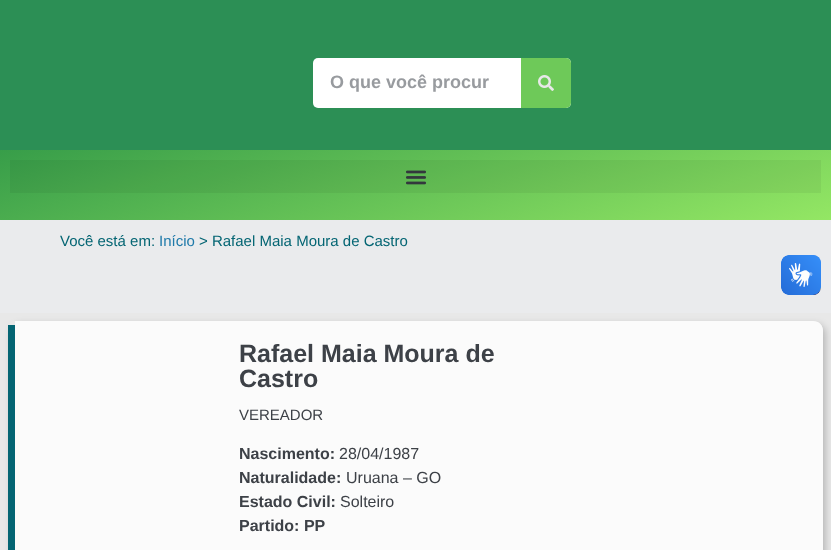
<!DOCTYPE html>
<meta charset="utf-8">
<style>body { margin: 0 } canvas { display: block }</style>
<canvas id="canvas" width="831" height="550"></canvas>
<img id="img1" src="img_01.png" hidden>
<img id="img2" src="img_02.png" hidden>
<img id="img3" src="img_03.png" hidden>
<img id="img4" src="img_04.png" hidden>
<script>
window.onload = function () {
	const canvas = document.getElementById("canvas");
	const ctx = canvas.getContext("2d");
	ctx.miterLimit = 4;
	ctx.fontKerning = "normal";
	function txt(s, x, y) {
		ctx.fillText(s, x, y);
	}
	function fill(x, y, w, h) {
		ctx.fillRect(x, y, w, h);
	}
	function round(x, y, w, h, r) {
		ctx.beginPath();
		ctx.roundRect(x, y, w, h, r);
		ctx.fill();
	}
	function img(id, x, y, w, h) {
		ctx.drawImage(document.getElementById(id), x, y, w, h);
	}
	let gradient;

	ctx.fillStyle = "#EAEBED";
	fill(0, 0, 831, 550);
	ctx.fillStyle = "#2C8F55";
	fill(0, 0, 831, 150);
	ctx.fillStyle = "#FFFFFF";
	round(313, 58, 258, 50, 5);
	ctx.fillStyle = "#6EC959";
	ctx.beginPath();
	ctx.roundRect(521, 58, 50, 50, [0, 5, 5, 0]);
	ctx.fill();
	img("img1", 538, 75, 16, 16);
	gradient = ctx.createLinearGradient(366, 31, 465, 339);
	gradient.addColorStop(0, "#379D49");
	gradient.addColorStop(1, "#94E764");
	ctx.fillStyle = gradient;
	fill(0, 150, 831, 70);
	ctx.fillStyle = "rgba(0, 0, 0, 0.05)";
	fill(10, 160, 811, 33);
	img("img2", 406, 170, 20, 15);
	ctx.fillStyle = "#E8E8E8";
	fill(0, 313, 831, 237);
	ctx.save();
	ctx.beginPath();
	ctx.moveTo(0, 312);
	ctx.lineTo(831, 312);
	ctx.lineTo(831, 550);
	ctx.lineTo(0, 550);
	ctx.closePath();
	ctx.moveTo(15, 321);
	ctx.lineTo(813, 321);
	ctx.bezierCurveTo(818.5, 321, 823, 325.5, 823, 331);
	ctx.lineTo(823, 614);
	ctx.bezierCurveTo(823, 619.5, 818.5, 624, 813, 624);
	ctx.lineTo(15, 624);
	ctx.bezierCurveTo(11, 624, 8, 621, 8, 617);
	ctx.lineTo(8, 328);
	ctx.bezierCurveTo(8, 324, 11, 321, 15, 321);
	ctx.closePath();
	ctx.clip("evenodd");
	ctx.fillStyle = "rgba(0, 0, 0, 0.2)";
	ctx.filter = "blur(3.5px)";
	ctx.beginPath();
	ctx.roundRect(11, 324, 815, 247, 10);
	ctx.fill();
	ctx.filter = "none";
	ctx.restore();
	ctx.fillStyle = "#FBFBFB";
	ctx.beginPath();
	ctx.moveTo(15, 321);
	ctx.lineTo(813, 321);
	ctx.bezierCurveTo(819, 321, 823, 325, 823, 331);
	ctx.lineTo(823, 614);
	ctx.bezierCurveTo(823, 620, 819, 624, 813, 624);
	ctx.lineTo(15, 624);
	ctx.closePath();
	ctx.fill();
	ctx.fillStyle = "#046573";
	fill(8, 325, 7, 225);
	img("img3", 781, 255, 40, 40);
	img("img4", 781, 255, 40, 40);
	ctx.font = "bold 18px Liberation Sans";
	ctx.fillStyle = "#989B9F";
	txt("O que você procur", 330, 88);
	ctx.font = "15px Liberation Sans";
	ctx.fillStyle = "#046573";
	txt("Você está em:", 60, 246);
	ctx.fillStyle = "#1F7AAA";
	txt("Início", 159, 246);
	ctx.fillStyle = "#046573";
	txt("> Rafael Maia Moura de Castro", 199, 246);
	ctx.font = "bold 25px Liberation Sans";
	ctx.fillStyle = "#3D4147";
	txt("Rafael Maia Moura de", 239, 362);
	txt("Castro", 239, 387);
	ctx.font = "15px Liberation Sans";
	txt("VEREADOR", 239, 420);
	ctx.font = "bold 16px Liberation Sans";
	txt("Nascimento:", 239, 459);
	ctx.font = "16px Liberation Sans";
	txt("28/04/1987", 339, 459);
	ctx.font = "bold 16px Liberation Sans";
	txt("Naturalidade:", 239, 483);
	ctx.font = "16px Liberation Sans";
	txt("Uruana – GO", 346, 483);
	ctx.font = "bold 16px Liberation Sans";
	txt("Estado Civil:", 239, 507);
	ctx.font = "16px Liberation Sans";
	txt("Solteiro", 340, 507);
	ctx.font = "bold 16px Liberation Sans";
	txt("Partido: PP", 239, 531);
};
</script>
